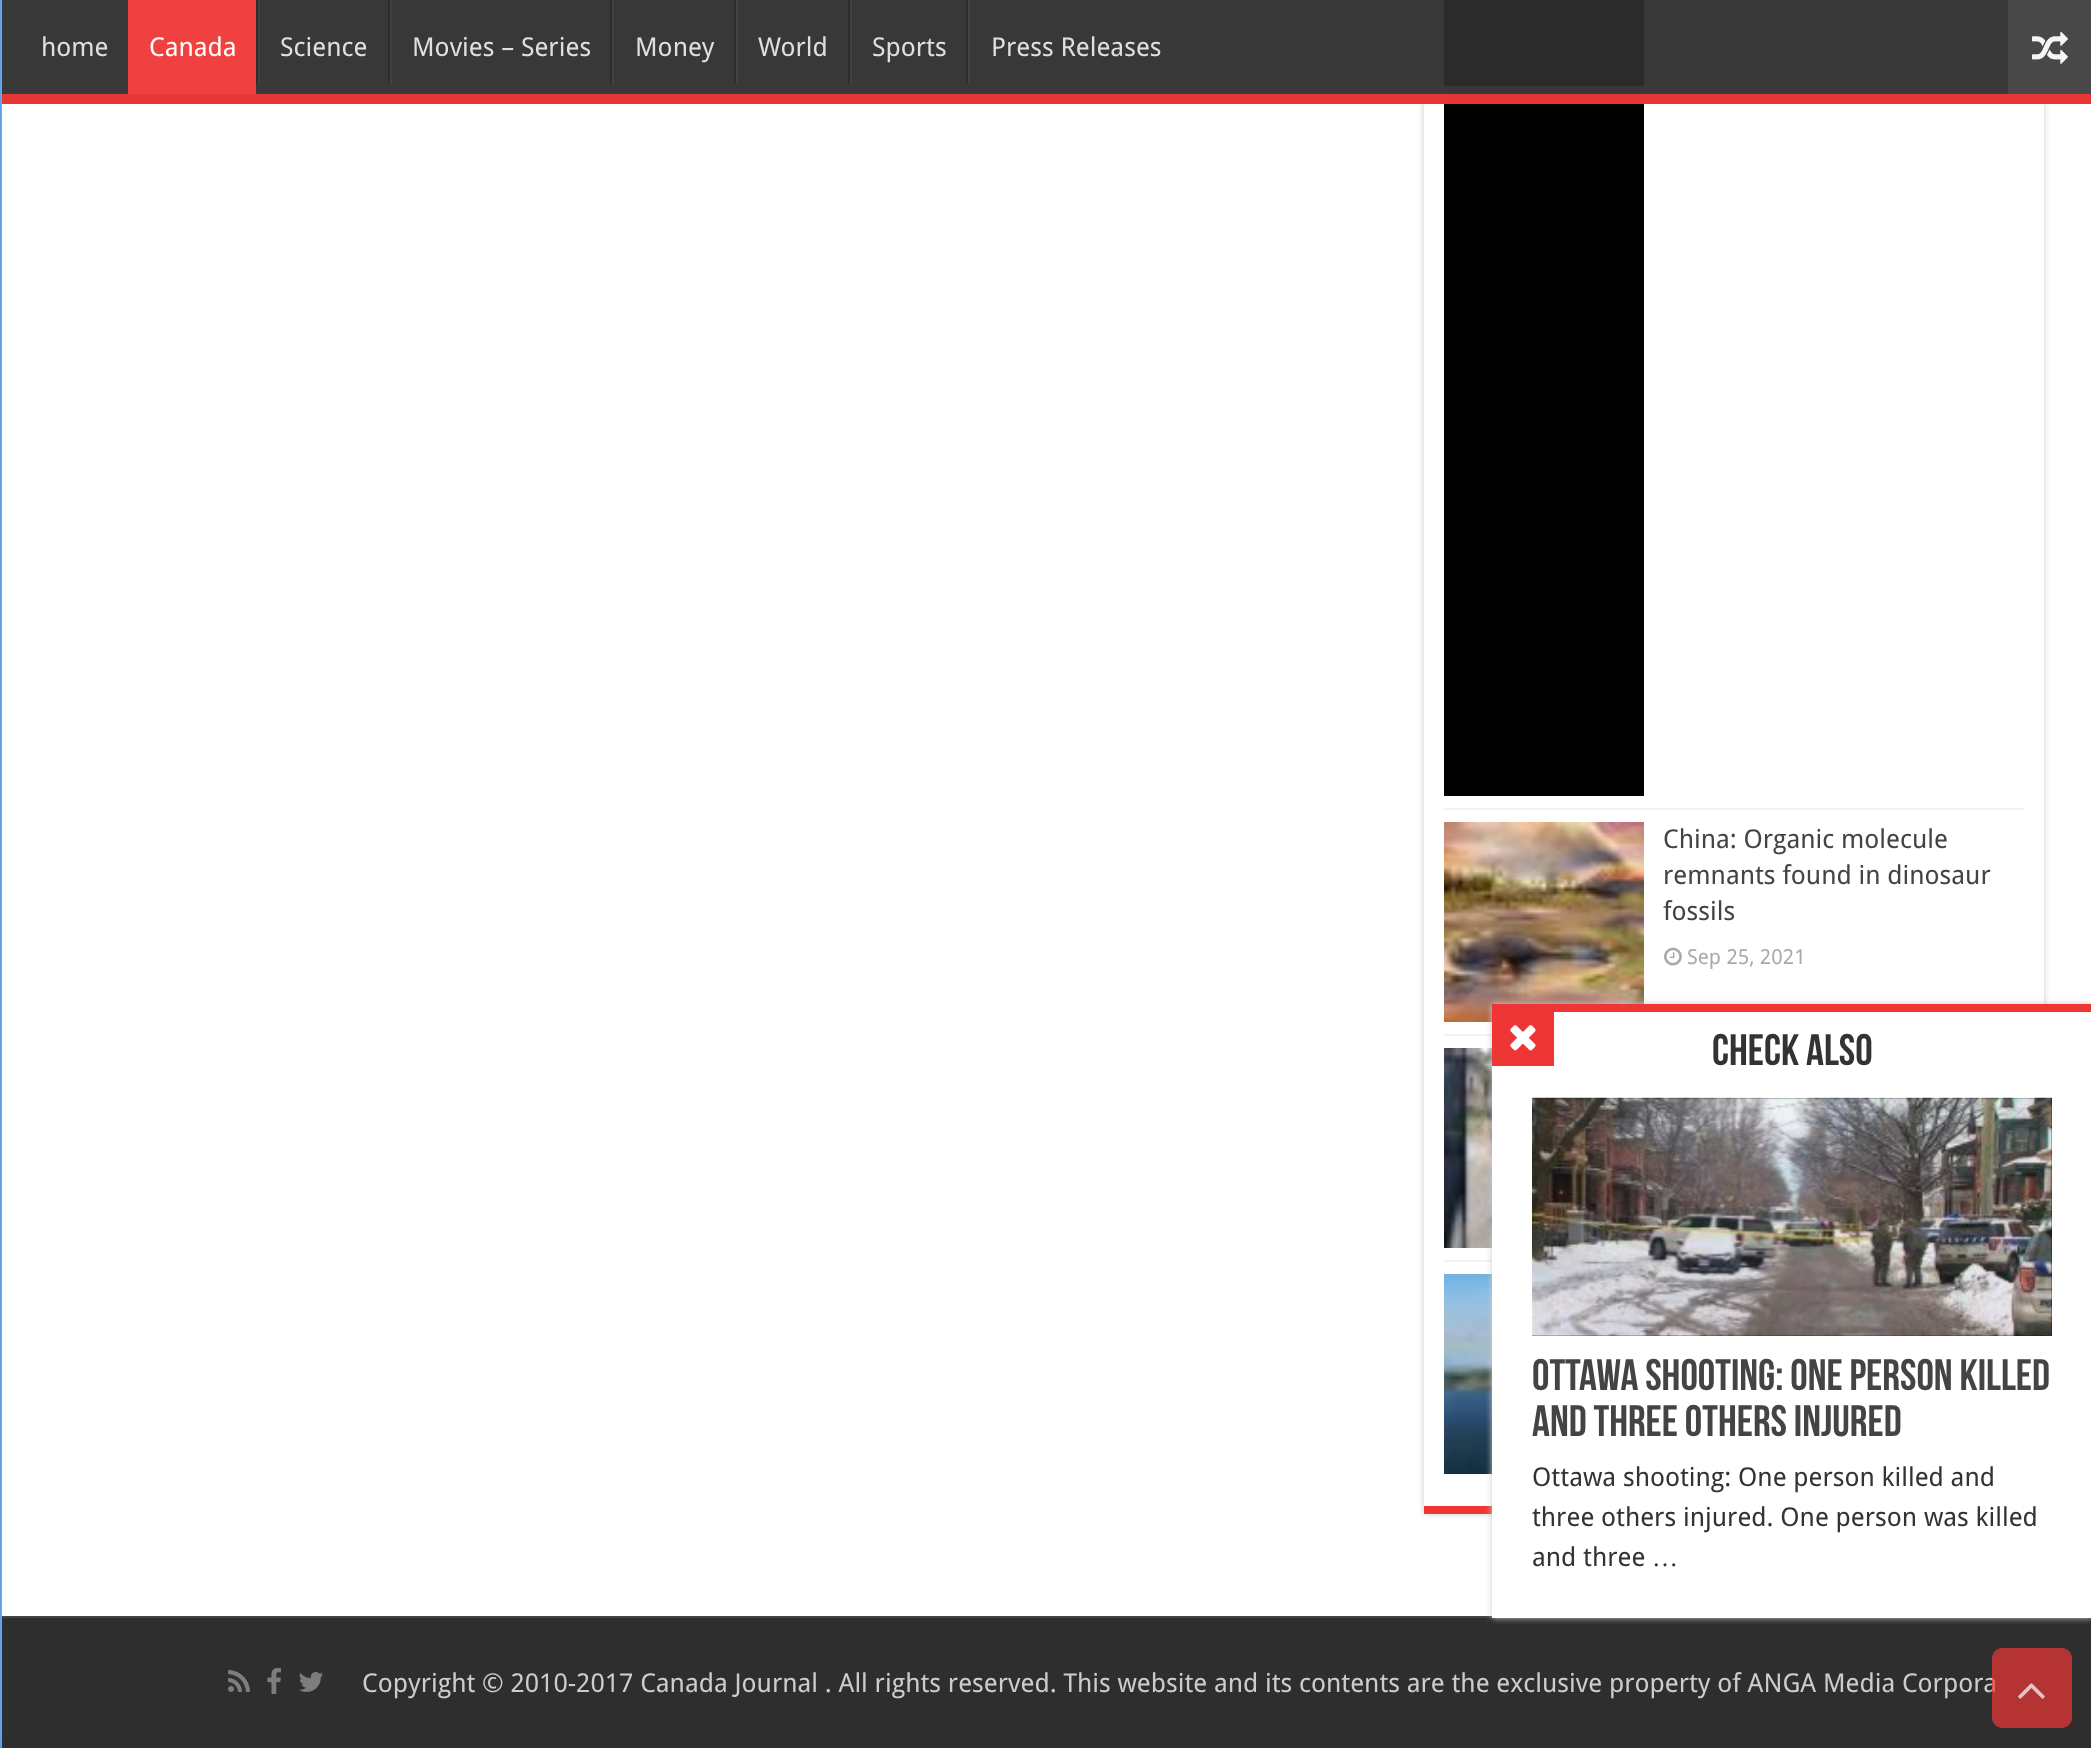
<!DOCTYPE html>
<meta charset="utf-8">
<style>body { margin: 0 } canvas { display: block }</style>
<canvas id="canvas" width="2091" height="1748"></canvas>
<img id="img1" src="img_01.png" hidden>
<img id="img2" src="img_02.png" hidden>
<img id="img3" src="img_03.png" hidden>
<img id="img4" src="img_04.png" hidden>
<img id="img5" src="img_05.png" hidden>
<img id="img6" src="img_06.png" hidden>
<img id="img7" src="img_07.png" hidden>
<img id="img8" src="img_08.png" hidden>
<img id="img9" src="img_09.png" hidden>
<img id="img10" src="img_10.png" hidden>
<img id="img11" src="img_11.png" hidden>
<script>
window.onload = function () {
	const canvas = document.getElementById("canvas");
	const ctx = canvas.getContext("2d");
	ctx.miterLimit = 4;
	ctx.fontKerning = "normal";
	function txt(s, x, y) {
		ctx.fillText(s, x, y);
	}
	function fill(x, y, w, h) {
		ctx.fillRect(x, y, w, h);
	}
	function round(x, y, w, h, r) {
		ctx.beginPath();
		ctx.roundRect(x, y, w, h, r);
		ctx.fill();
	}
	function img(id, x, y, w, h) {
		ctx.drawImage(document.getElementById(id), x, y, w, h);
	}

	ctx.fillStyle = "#298DF2";
	fill(0, 0, 2091, 1748);
	ctx.fillStyle = "#CACACA";
	ctx.filter = "blur(3px)";
	ctx.beginPath();
	ctx.rect(2, -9, 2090, 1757);
	ctx.fill();
	ctx.filter = "none";
	ctx.fillStyle = "#FFFFFF";
	fill(2, 0, 2089, 1616);
	ctx.save();
	ctx.beginPath();
	ctx.moveTo(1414, 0);
	ctx.lineTo(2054, 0);
	ctx.lineTo(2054, 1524);
	ctx.lineTo(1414, 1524);
	ctx.closePath();
	ctx.moveTo(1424, -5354);
	ctx.lineTo(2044, -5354);
	ctx.lineTo(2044, 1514);
	ctx.lineTo(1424, 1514);
	ctx.closePath();
	ctx.clip("evenodd");
	ctx.fillStyle = "#CACACA";
	ctx.filter = "blur(3px)";
	ctx.beginPath();
	ctx.rect(1424, -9, 620, 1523);
	ctx.fill();
	ctx.filter = "none";
	ctx.restore();
	ctx.fillStyle = "#000000";
	fill(1444, 0, 200, 796);
	ctx.fillStyle = "rgba(45, 45, 45, 0.95)";
	fill(2, 0, 2089, 104);
	ctx.save();
	ctx.beginPath();
	ctx.rect(2, 0, 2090, 94);
	ctx.clip();
	ctx.fillStyle = "rgba(57, 57, 57, 0.95)";
	ctx.beginPath();
	ctx.moveTo(-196, -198);
	ctx.lineTo(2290, -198);
	ctx.lineTo(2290, 292);
	ctx.lineTo(-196, 292);
	ctx.closePath();
	ctx.moveTo(0, -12);
	ctx.lineTo(2090, -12);
	ctx.bezierCurveTo(2091, -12, 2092, -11, 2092, -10);
	ctx.lineTo(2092, 84);
	ctx.bezierCurveTo(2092, 85, 2091, 86, 2090, 86);
	ctx.lineTo(0, 86);
	ctx.bezierCurveTo(-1, 86, -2, 85, -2, 84);
	ctx.lineTo(-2, -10);
	ctx.bezierCurveTo(-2, -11, -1, -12, 0, -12);
	ctx.closePath();
	ctx.fill("evenodd");
	ctx.restore();
	ctx.fillStyle = "rgba(239, 54, 54, 0.95)";
	fill(2, 94, 2089, 10);
	ctx.fillStyle = "#F04040";
	fill(128, 0, 128, 94);
	ctx.fillStyle = "#2D2D2D";
	fill(256, 0, 2, 84);
	ctx.fillStyle = "#424242";
	fill(258, 0, 2, 84);
	ctx.fillStyle = "#2D2D2D";
	fill(388, 0, 2, 84);
	ctx.fillStyle = "#424242";
	fill(390, 0, 2, 84);
	ctx.fillStyle = "#2D2D2D";
	fill(610, 0, 2, 84);
	ctx.fillStyle = "#424242";
	fill(612, 0, 2, 84);
	ctx.fillStyle = "#2D2D2D";
	fill(734, 0, 2, 84);
	ctx.fillStyle = "#424242";
	fill(736, 0, 2, 84);
	ctx.fillStyle = "#2D2D2D";
	fill(848, 0, 2, 84);
	ctx.fillStyle = "#424242";
	fill(850, 0, 2, 84);
	ctx.fillStyle = "#2D2D2D";
	fill(966, 0, 2, 84);
	ctx.fillStyle = "#424242";
	fill(968, 0, 2, 84);
	ctx.fillStyle = "rgba(73, 73, 73, 0.95)";
	fill(2008, 0, 83, 94);
	img("img1", 2032, 31, 36, 33);
	ctx.fillStyle = "#EF3636";
	fill(1424, 1506, 68, 8);
	ctx.fillStyle = "#F2F2F2";
	fill(1444, 808, 580, 2);
	fill(1444, 1034, 48, 2);
	img("img2", 1444, 822, 200, 200);
	img("img3", 1664, 947, 18, 19);
	fill(1444, 1260, 48, 2);
	img("img4", 1444, 1048, 48, 200);
	img("img5", 1444, 1274, 48, 200);
	ctx.fillStyle = "#2E2E2E";
	fill(2, 1618, 2089, 130);
	ctx.fillStyle = "#444444";
	fill(2, 1616, 1490, 2);
	ctx.fillStyle = "#CACACA";
	ctx.filter = "blur(3px)";
	ctx.beginPath();
	ctx.rect(1492, 1004, 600, 614);
	ctx.fill();
	ctx.filter = "none";
	ctx.fillStyle = "#FFFFFF";
	fill(1492, 1012, 599, 606);
	ctx.fillStyle = "#EF3636";
	fill(1492, 1004, 599, 8);
	fill(1492, 1012, 62, 54);
	img("img6", 1510, 1025, 26, 26);
	ctx.fillStyle = "#000000";
	fill(1532, 1098, 520, 238);
	img("img7", 1532, 1097, 520, 239);
	img("img8", 228, 1670, 22, 22);
	img("img9", 267, 1668, 14, 26);
	img("img10", 299, 1672, 24, 20);
	ctx.font = "26px Droid Sans";
	ctx.fillStyle = "#DFDFDF";
	txt("home", 41, 56);
	ctx.fillStyle = "#FFFFFF";
	txt("Canada", 149, 56);
	ctx.fillStyle = "#DFDFDF";
	txt("Science", 280, 56);
	txt("Movies – Series", 412, 56);
	txt("Money", 635, 56);
	txt("World", 758, 56);
	txt("Sports", 872, 56);
	txt("Press Releases", 991, 56);
	ctx.fillStyle = "#444444";
	txt("China: Organic molecule", 1663, 848);
	txt("remnants found in dinosaur", 1663, 884);
	txt("fossils", 1663, 920);
	ctx.font = "20.75px Droid Sans";
	ctx.fillStyle = "#AAAAAA";
	txt("Sep 25, 2021", 1687, 964);
	ctx.font = "bold 44px Bebas Neue";
	ctx.fillStyle = "#333333";
	txt("Check Also", 1712, 1065);
	ctx.fillStyle = "#444444";
	txt("Ottawa shooting: One person killed", 1532, 1390);
	txt("and three others injured", 1532, 1436);
	ctx.font = "26px Droid Sans";
	ctx.fillStyle = "#333333";
	txt("Ottawa shooting: One person killed and", 1532, 1486);
	txt("three others injured. One person was killed", 1532, 1526);
	txt("and three", 1532, 1566);
	ctx.font = "26px Liberation Serif";
	txt("…", 1652, 1566);
	ctx.font = "26px Droid Sans";
	ctx.fillStyle = "#CCCCCC";
	txt("Copyright © 2010-2017 Canada Journal . All rights reserved. This website and its contents are the exclusive property of ANGA Media Corpora", 362, 1692);
	ctx.fillStyle = "rgba(239, 54, 54, 0.7)";
	round(1992, 1648, 80, 80, 10);
	img("img11", 2018, 1683, 27, 16);
};
</script>
